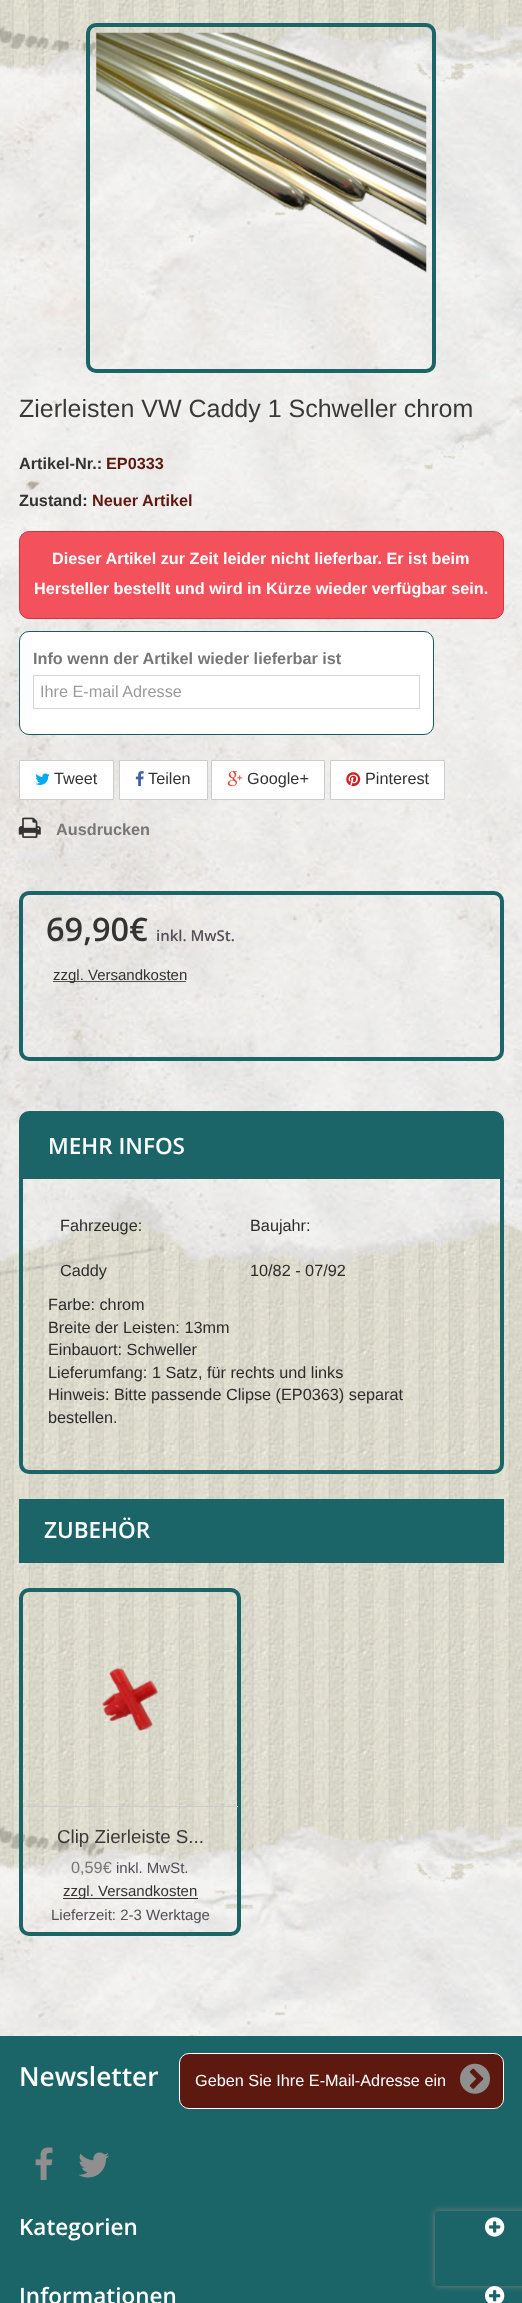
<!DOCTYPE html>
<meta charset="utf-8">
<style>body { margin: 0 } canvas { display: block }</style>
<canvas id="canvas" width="522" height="2303"></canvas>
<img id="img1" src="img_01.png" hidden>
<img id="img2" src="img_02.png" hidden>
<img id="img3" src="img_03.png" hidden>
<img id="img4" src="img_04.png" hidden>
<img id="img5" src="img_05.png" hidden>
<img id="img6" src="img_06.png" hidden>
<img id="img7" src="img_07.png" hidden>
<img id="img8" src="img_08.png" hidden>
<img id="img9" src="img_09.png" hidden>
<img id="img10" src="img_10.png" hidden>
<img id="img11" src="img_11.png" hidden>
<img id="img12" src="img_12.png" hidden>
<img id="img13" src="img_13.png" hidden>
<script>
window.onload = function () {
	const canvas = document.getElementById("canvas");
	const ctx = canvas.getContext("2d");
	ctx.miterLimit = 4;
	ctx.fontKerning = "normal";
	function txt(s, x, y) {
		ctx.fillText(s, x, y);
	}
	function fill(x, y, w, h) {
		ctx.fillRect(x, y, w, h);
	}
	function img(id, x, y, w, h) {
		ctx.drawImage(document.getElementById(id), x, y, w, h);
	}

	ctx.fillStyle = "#FFFFFF";
	fill(0, 0, 522, 2303);
	img("img1", 0, 0, 522, 2036);
	ctx.beginPath();
	ctx.roundRect(88, 25, 346, 346, 8);
	ctx.strokeStyle = "#1B6568";
	ctx.lineWidth = 4;
	ctx.stroke();
	img("img2", 96, 32, 331, 241);
	ctx.fillStyle = "#F3515C";
	ctx.beginPath();
	ctx.roundRect(19.5, 531.5, 484, 87, 9.5);
	ctx.fill();
	ctx.strokeStyle = "#D4323D";
	ctx.lineWidth = 1;
	ctx.stroke();
	ctx.fillStyle = "#FFFFFF";
	ctx.beginPath();
	ctx.roundRect(19.5, 631.5, 414, 103, 9.5);
	ctx.fill();
	ctx.strokeStyle = "#175B5D";
	ctx.stroke();
	ctx.strokeStyle = "#D6D4D4";
	ctx.strokeRect(33.5, 675.5, 386, 33);
	ctx.beginPath();
	ctx.rect(19.5, 760.5, 94, 39);
	ctx.fill();
	ctx.strokeStyle = "#CCCCCC";
	ctx.stroke();
	img("img3", 35, 773, 15, 12);
	ctx.beginPath();
	ctx.rect(119.5, 760.5, 88, 39);
	ctx.fill();
	ctx.stroke();
	img("img4", 135, 771, 9, 16);
	ctx.beginPath();
	ctx.rect(211.5, 760.5, 113, 39);
	ctx.fill();
	ctx.stroke();
	img("img5", 227, 771, 16, 16);
	ctx.beginPath();
	ctx.rect(330.5, 760.5, 114, 39);
	ctx.fill();
	ctx.stroke();
	img("img6", 346, 772, 15, 15);
	img("img7", 18, 817, 23, 21);
	ctx.beginPath();
	ctx.roundRect(21, 893, 481, 166, 8);
	ctx.strokeStyle = "#1B6568";
	ctx.lineWidth = 4;
	ctx.stroke();
	ctx.fillStyle = "#554F58";
	fill(53, 981, 133, 1);
	ctx.beginPath();
	ctx.roundRect(21, 1113, 481, 359, 8);
	ctx.stroke();
	ctx.fillStyle = "#1B6568";
	fill(23, 1115, 477, 64);
	fill(19, 1499, 485, 64);
	ctx.beginPath();
	ctx.roundRect(21, 1590, 218, 344, 8);
	ctx.stroke();
	ctx.fillStyle = "#CCCCCC";
	fill(23, 1806, 215, 1);
	img("img8", 102, 1667, 56, 64);
	ctx.fillStyle = "#333333";
	fill(63, 1898, 135, 1);
	ctx.fillStyle = "#1B6568";
	fill(0, 2036, 522, 267);
	ctx.fillStyle = "#5D190F";
	ctx.beginPath();
	ctx.roundRect(179.5, 2053.5, 324, 55, 9.5);
	ctx.fill();
	ctx.strokeStyle = "#FFFFFF";
	ctx.lineWidth = 1;
	ctx.stroke();
	img("img9", 460, 2063, 30, 31);
	ctx.save();
	ctx.beginPath();
	ctx.moveTo(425, 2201);
	ctx.lineTo(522, 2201);
	ctx.lineTo(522, 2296);
	ctx.lineTo(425, 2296);
	ctx.closePath();
	ctx.moveTo(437.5, 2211);
	ctx.lineTo(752.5, 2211);
	ctx.bezierCurveTo(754, 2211, 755, 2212, 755, 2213.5);
	ctx.lineTo(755, 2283.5);
	ctx.bezierCurveTo(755, 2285, 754, 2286, 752.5, 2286);
	ctx.lineTo(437.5, 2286);
	ctx.bezierCurveTo(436, 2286, 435, 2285, 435, 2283.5);
	ctx.lineTo(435, 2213.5);
	ctx.bezierCurveTo(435, 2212, 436, 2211, 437.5, 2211);
	ctx.closePath();
	ctx.clip("evenodd");
	ctx.fillStyle = "#808080";
	ctx.filter = "blur(3px)";
	ctx.beginPath();
	ctx.roundRect(435, 2211, 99, 75, 2.5);
	ctx.fill();
	ctx.filter = "none";
	ctx.restore();
	img("img10", 35, 2147, 18, 33);
	img("img11", 78, 2152, 31, 26);
	img("img12", 485, 2217, 20, 20);
	img("img13", 485, 2286, 20, 17);
	ctx.font = "25px Liberation Sans";
	ctx.fillStyle = "#3A3939";
	txt("Zierleisten VW Caddy 1 Schweller chrom", 19, 417);
	ctx.font = "bold 16.25px Liberation Sans";
	ctx.fillStyle = "#333333";
	txt("Artikel-Nr.:", 19, 469);
	ctx.fillStyle = "#5D190F";
	txt("EP0333", 106, 469);
	ctx.fillStyle = "#333333";
	txt("Zustand:", 19, 506);
	ctx.fillStyle = "#5D190F";
	txt("Neuer Artikel", 92, 506);
	ctx.fillStyle = "#FFFFFF";
	txt("Dieser Artikel zur Zeit leider nicht lieferbar. Er ist beim", 52, 564);
	txt("Hersteller bestellt und wird in Kürze wieder verfügbar sein.", 34, 594);
	ctx.fillStyle = "#777777";
	txt("Info wenn der Artikel wieder lieferbar ist", 33, 664);
	ctx.font = "16.25px Liberation Sans";
	ctx.fillStyle = "#9C9B9B";
	txt("Ihre E-mail Adresse", 40, 697);
	ctx.fillStyle = "#333333";
	txt("Tweet", 54, 784);
	txt("Teilen", 148, 784);
	txt("Google+", 247, 784);
	txt("Pinterest", 365, 784);
	ctx.font = "bold 16.25px Liberation Sans";
	ctx.fillStyle = "#777777";
	txt("Ausdrucken", 56, 835);
	ctx.font = "600 32.5px Open Sans";
	ctx.fillStyle = "#333333";
	txt("69,90€", 46, 941);
	ctx.font = "600 15px Open Sans";
	ctx.fillStyle = "#554F58";
	txt("inkl. MwSt.", 156, 941);
	ctx.font = "15px Liberation Sans";
	ctx.fillStyle = "#333333";
	txt("zzgl. Versandkosten", 53, 980);
	ctx.font = "600 22.5px Open Sans";
	ctx.fillStyle = "#FFFFFF";
	txt("MEHR INFOS", 48, 1154);
	ctx.font = "16.25px Liberation Sans";
	ctx.fillStyle = "#2B2B2B";
	txt("Fahrzeuge:", 60, 1231);
	txt("Baujahr:", 250, 1231);
	txt("Caddy", 60, 1276);
	txt("10/82 - 07/92", 250, 1276);
	txt("Farbe: chrom", 48, 1310);
	txt("Breite der Leisten: 13mm", 48, 1333);
	txt("Einbauort: Schweller", 48, 1355);
	txt("Lieferumfang: 1 Satz, für rechts und links", 48, 1378);
	txt("Hinweis: Bitte passende Clipse (EP0363) separat", 48, 1400);
	txt("bestellen.", 48, 1423);
	ctx.font = "600 22.5px Open Sans";
	ctx.fillStyle = "#FFFFFF";
	txt("ZUBEHÖR", 44, 1538);
	ctx.font = "18.75px Liberation Sans";
	ctx.fillStyle = "#3A3939";
	txt("Clip Zierleiste S...", 57, 1843);
	ctx.font = "16.25px Liberation Sans";
	ctx.fillStyle = "#777777";
	txt("0,59€", 71, 1873);
	ctx.font = "15px Liberation Sans";
	ctx.fillStyle = "#554F58";
	txt("inkl. MwSt.", 116, 1873);
	ctx.fillStyle = "#333333";
	txt("zzgl. Versandkosten", 63, 1896);
	ctx.fillStyle = "#554F58";
	txt("Lieferzeit: 2-3 Werktage", 51, 1920);
	ctx.font = "600 26.25px Open Sans";
	ctx.fillStyle = "#FFFFFF";
	txt("Newsletter", 19, 2086);
	ctx.font = "16.25px Liberation Sans";
	txt("Geben Sie Ihre E-Mail-Adresse ein", 195, 2086);
	ctx.font = "600 22.5px Open Sans";
	txt("Kategorien", 19, 2235);
	txt("Informationen", 19, 2304);
};
</script>
